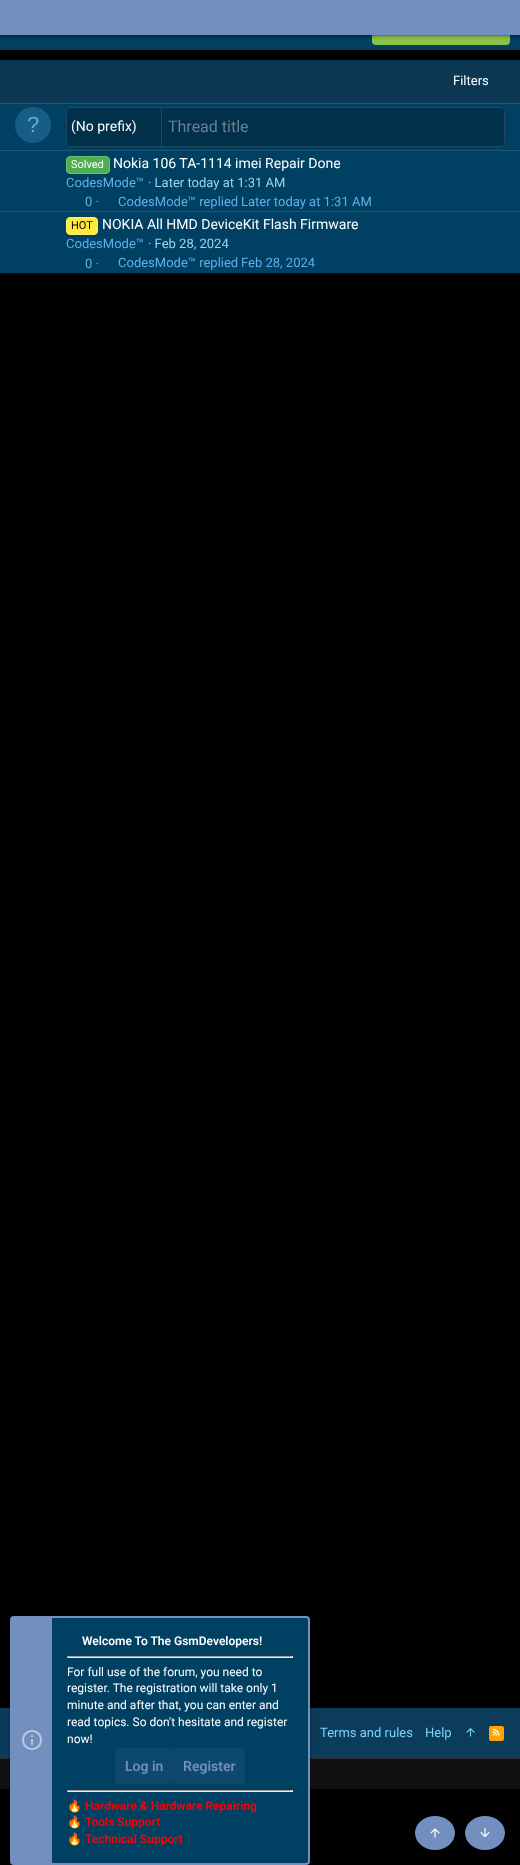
<!DOCTYPE html>
<meta charset="utf-8">
<style>body { margin: 0 } canvas { display: block }</style>
<canvas id="canvas" width="520" height="1865"></canvas>
<img id="img1" src="img_01.png" hidden>
<img id="img2" src="img_02.png" hidden>
<img id="img3" src="img_03.png" hidden>
<img id="img4" src="img_04.png" hidden>
<img id="img5" src="img_05.png" hidden>
<script>
window.onload = function () {
	const canvas = document.getElementById("canvas");
	const ctx = canvas.getContext("2d");
	ctx.miterLimit = 4;
	ctx.fontKerning = "normal";
	function txt(s, x, y) {
		ctx.fillText(s, x, y);
	}
	function fill(x, y, w, h) {
		ctx.fillRect(x, y, w, h);
	}
	function round(x, y, w, h, r) {
		ctx.beginPath();
		ctx.roundRect(x, y, w, h, r);
		ctx.fill();
	}
	function img(id, x, y, w, h) {
		ctx.drawImage(document.getElementById(id), x, y, w, h);
	}

	ctx.fillStyle = "#000000";
	fill(0, 0, 520, 1865);
	ctx.fillStyle = "#004163";
	fill(0, 35, 520, 15);
	ctx.fillStyle = "#8BC34A";
	round(372, 9, 138, 36, 4);
	ctx.fillStyle = "rgba(0, 0, 0, 0.2)";
	ctx.filter = "blur(2.5px)";
	ctx.beginPath();
	ctx.rect(0, 1, 520, 35);
	ctx.fill();
	ctx.filter = "none";
	ctx.fillStyle = "rgba(0, 0, 0, 0.12)";
	ctx.filter = "blur(0.5px)";
	ctx.beginPath();
	ctx.rect(2, 5, 516, 31);
	ctx.fill();
	ctx.filter = "none";
	ctx.fillStyle = "rgba(0, 0, 0, 0.14)";
	ctx.filter = "blur(1px)";
	ctx.beginPath();
	ctx.rect(0, 2, 520, 35);
	ctx.fill();
	ctx.filter = "none";
	ctx.fillStyle = "#738FBF";
	fill(0, 0, 520, 35);
	ctx.fillStyle = "#0C3753";
	fill(0, 60, 520, 43);
	ctx.fillStyle = "#004163";
	fill(0, 104, 520, 169);
	ctx.fillStyle = "#1F5876";
	fill(0, 103, 520, 1);
	ctx.fillStyle = "#175D84";
	ctx.beginPath();
	ctx.arc(33, 125, 18, 0, Math.PI * 2);
	ctx.fill();
	ctx.fillStyle = "#00304A";
	ctx.beginPath();
	ctx.roundRect(66, 107, 95, 40, [4, 0, 0, 4]);
	ctx.fill();
	ctx.fillStyle = "rgba(255, 255, 255, 0.12)";
	ctx.beginPath();
	ctx.moveTo(70, 107);
	ctx.lineTo(161, 107);
	ctx.lineTo(161, 147);
	ctx.lineTo(70, 147);
	ctx.bezierCurveTo(68, 147, 66, 145, 66, 143);
	ctx.lineTo(66, 111);
	ctx.bezierCurveTo(66, 109, 68, 107, 70, 107);
	ctx.closePath();
	ctx.moveTo(70, 108);
	ctx.lineTo(161, 108);
	ctx.lineTo(161, 146);
	ctx.lineTo(70, 146);
	ctx.bezierCurveTo(68, 146, 67, 145, 67, 143);
	ctx.lineTo(67, 111);
	ctx.bezierCurveTo(67, 109, 68, 108, 70, 108);
	ctx.closePath();
	ctx.fill("evenodd");
	ctx.fillStyle = "#00304A";
	ctx.beginPath();
	ctx.roundRect(161, 107, 344, 40, [0, 4, 4, 0]);
	ctx.fill();
	ctx.beginPath();
	ctx.roundRect(161.5, 107.5, 343, 39, [0, 3.5, 3.5, 0]);
	ctx.strokeStyle = "rgba(255, 255, 255, 0.12)";
	ctx.stroke();
	ctx.fillStyle = "#1F5876";
	fill(0, 150, 520, 1);
	ctx.fillStyle = "#4CAF50";
	ctx.beginPath();
	ctx.roundRect(66.5, 156.5, 43, 17, 3.5);
	ctx.fill();
	ctx.strokeStyle = "#6EC071";
	ctx.stroke();
	ctx.fillStyle = "#1F5876";
	fill(0, 211, 520, 1);
	ctx.fillStyle = "#FFEB3B";
	ctx.beginPath();
	ctx.roundRect(66.5, 217.5, 31, 17, 3.5);
	ctx.fill();
	ctx.strokeStyle = "#FFF06E";
	ctx.stroke();
	ctx.fillStyle = "#0B3C59";
	fill(0, 1708, 520, 50);
	img("img1", 466, 1728, 9, 9);
	ctx.fillStyle = "#FFA500";
	round(489, 1726, 15, 15, 2);
	img("img2", 492, 1728, 8, 8);
	ctx.fillStyle = "#111111";
	fill(0, 1759, 520, 30);
	ctx.fillStyle = "#2E2E2E";
	fill(0, 1758, 520, 1);
	ctx.fillStyle = "#738FBF";
	ctx.beginPath();
	ctx.ellipse(435, 1833, 20, 17, 0, 0, Math.PI * 2);
	ctx.fill();
	img("img3", 430, 1828, 10, 10);
	ctx.beginPath();
	ctx.ellipse(485, 1833, 20, 17, 0, 0, Math.PI * 2);
	ctx.fill();
	img("img4", 480, 1828, 10, 10);
	ctx.fillStyle = "rgba(0, 0, 0, 0.2)";
	ctx.filter = "blur(2.5px)";
	ctx.beginPath();
	ctx.roundRect(10, 1617, 300, 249, 4);
	ctx.fill();
	ctx.filter = "none";
	ctx.fillStyle = "rgba(0, 0, 0, 0.14)";
	ctx.filter = "blur(1px)";
	ctx.beginPath();
	ctx.roundRect(10, 1618, 300, 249, 4);
	ctx.fill();
	ctx.filter = "none";
	ctx.fillStyle = "#004163";
	ctx.beginPath();
	ctx.roundRect(11, 1617, 298, 247, 3);
	ctx.fill();
	ctx.strokeStyle = "#738FBF";
	ctx.lineWidth = 2;
	ctx.stroke();
	ctx.fillStyle = "#738FBF";
	fill(12, 1618, 40, 245);
	img("img5", 22, 1730, 20, 20);
	ctx.fillStyle = "#9F9F9F";
	fill(67, 1656, 226, 1);
	ctx.fillStyle = "#EEEEEE";
	fill(292, 1656, 1, 2);
	fill(67, 1657, 226, 1);
	ctx.fillStyle = "#9F9F9F";
	fill(67, 1656, 1, 2);
	ctx.fillStyle = "#0C496C";
	round(115, 1748, 58, 36, 4);
	round(173, 1748, 72, 36, 4);
	ctx.fillStyle = "#9F9F9F";
	fill(67, 1790, 226, 1);
	ctx.fillStyle = "#EEEEEE";
	fill(292, 1790, 1, 2);
	fill(67, 1791, 226, 1);
	ctx.fillStyle = "#9F9F9F";
	fill(67, 1790, 1, 2);
	ctx.font = "13px Roboto";
	ctx.fillStyle = "#FFFFFF";
	txt("Filters", 453, 85);
	ctx.font = "22px Liberation Sans";
	ctx.fillStyle = "#5DB1E8";
	txt("?", 27, 132);
	ctx.font = "14px Roboto";
	ctx.fillStyle = "#FFFFFF";
	txt("(No prefix)", 71, 131);
	ctx.font = "16px Roboto";
	ctx.fillStyle = "#668392";
	txt("Thread title", 168, 132);
	ctx.font = "11px Roboto";
	ctx.fillStyle = "#FFFFFF";
	txt("Solved", 71, 168);
	ctx.font = "14px Roboto";
	txt("Nokia 106 TA-1114 imei Repair Done", 113, 168);
	ctx.font = "13px Roboto";
	ctx.fillStyle = "#5DB1E8";
	txt("CodesMode™", 66, 187);
	ctx.fillStyle = "#A0D1F1";
	txt("· Later today at 1:31 AM", 148, 187);
	ctx.fillStyle = "#5DB1E8";
	txt("0 ·", 85, 206);
	txt("CodesMode™ replied", 118, 206);
	txt("Later today at 1:31 AM", 241, 206);
	ctx.font = "11px Roboto";
	ctx.fillStyle = "#000000";
	txt("HOT", 71, 229);
	ctx.font = "14px Roboto";
	ctx.fillStyle = "#FFFFFF";
	txt("NOKIA All HMD DeviceKit Flash Firmware", 102, 229);
	ctx.font = "13px Roboto";
	ctx.fillStyle = "#5DB1E8";
	txt("CodesMode™", 66, 248);
	ctx.fillStyle = "#A0D1F1";
	txt("· Feb 28, 2024", 148, 248);
	ctx.fillStyle = "#5DB1E8";
	txt("0 ·", 85, 268);
	txt("CodesMode™ replied", 118, 267);
	txt("Feb 28, 2024", 241, 267);
	ctx.fillStyle = "#7DD1FF";
	txt("Terms and rules", 320, 1737);
	txt("Help", 425, 1737);
	ctx.font = "600 12px Roboto";
	ctx.fillStyle = "#FFFFFF";
	txt("Welcome To The GsmDevelopers!", 82, 1645);
	ctx.font = "12px Roboto";
	txt("For full use of the forum, you need to", 67, 1676);
	txt("register. The registration will take only 1", 67, 1692);
	txt("minute and after that, you can enter and", 67, 1709);
	txt("read topics. So don't hesitate and register", 67, 1726);
	txt("now!", 67, 1743);
	ctx.font = "600 14px Roboto";
	ctx.fillStyle = "#738FBF";
	txt("Log in", 125, 1771);
	txt("Register", 183, 1771);
	ctx.font = "12px Noto Color Emoji";
	ctx.fillStyle = "#FFFFFF";
	txt("🔥", 67, 1810);
	ctx.font = "600 12px Roboto";
	ctx.fillStyle = "#FF0000";
	txt("Hardware & Hardware Repairing", 85, 1810);
	ctx.font = "12px Noto Color Emoji";
	ctx.fillStyle = "#FFFFFF";
	txt("🔥", 67, 1826);
	ctx.font = "600 12px Roboto";
	ctx.fillStyle = "#FF0000";
	txt("Tools Support", 85, 1826);
	ctx.font = "12px Noto Color Emoji";
	ctx.fillStyle = "#FFFFFF";
	txt("🔥", 67, 1843);
	ctx.font = "600 12px Roboto";
	ctx.fillStyle = "#FF0000";
	txt("Technical Support", 85, 1843);
};
</script>
